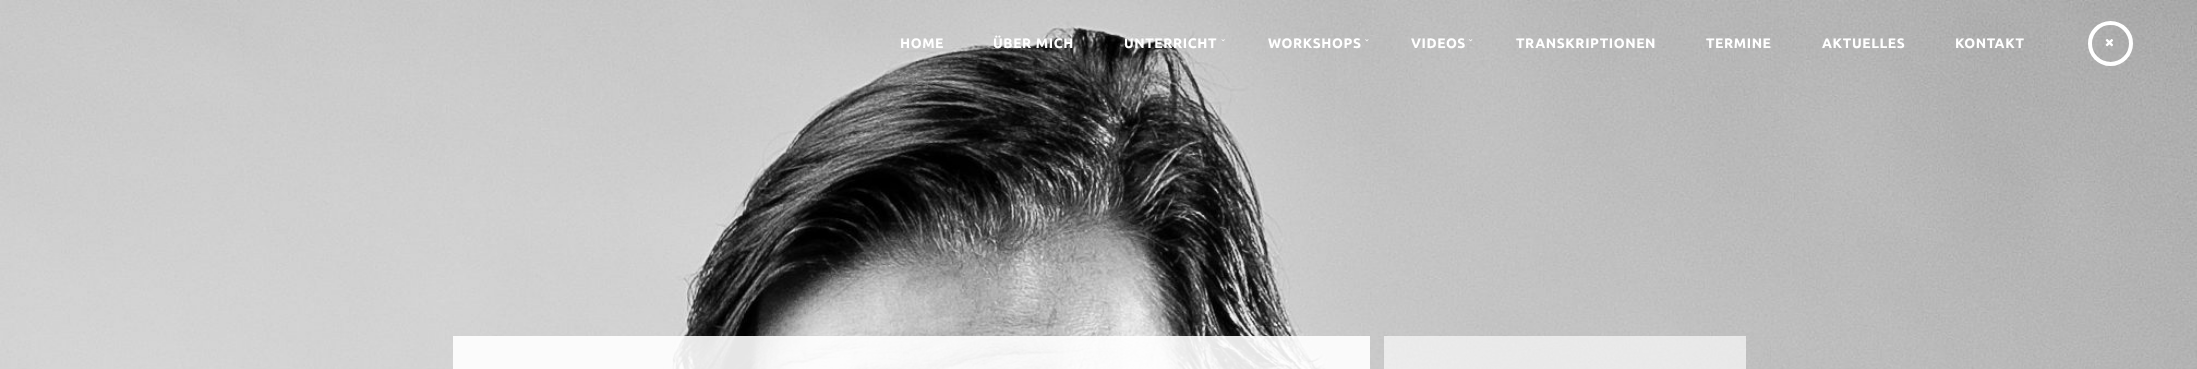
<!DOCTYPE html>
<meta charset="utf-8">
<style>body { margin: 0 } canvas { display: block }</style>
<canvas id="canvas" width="2197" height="369"></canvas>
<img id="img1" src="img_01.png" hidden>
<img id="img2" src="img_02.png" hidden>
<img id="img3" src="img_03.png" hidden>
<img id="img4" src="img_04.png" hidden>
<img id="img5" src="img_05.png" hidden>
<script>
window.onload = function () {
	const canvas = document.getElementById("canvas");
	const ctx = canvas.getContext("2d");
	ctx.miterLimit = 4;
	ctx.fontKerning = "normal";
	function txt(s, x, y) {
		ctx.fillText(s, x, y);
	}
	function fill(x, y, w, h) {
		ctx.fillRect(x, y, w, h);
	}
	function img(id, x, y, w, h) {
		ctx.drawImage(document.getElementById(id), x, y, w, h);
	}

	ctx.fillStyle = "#FFFFFF";
	fill(0, 0, 2197, 369);
	img("img1", 0, 0, 2197, 369);
	img("img2", 1221, 39, 4, 3);
	img("img3", 1365, 39, 4, 3);
	img("img4", 1469, 39, 4, 3);
	ctx.beginPath();
	ctx.arc(2110.5, 43.5, 20.5, 0, Math.PI * 2);
	ctx.strokeStyle = "#FFFFFF";
	ctx.lineWidth = 4;
	ctx.stroke();
	img("img5", 2105, 39, 9, 8);
	ctx.fillStyle = "rgba(255, 255, 255, 0.9)";
	fill(453, 336, 917, 33);
	ctx.fillStyle = "rgba(255, 255, 255, 0.64)";
	fill(1384, 336, 362, 33);
	ctx.letterSpacing = "0.6px";
	ctx.font = "bold 13.75px Ubuntu";
	ctx.fillStyle = "#FFFFFF";
	txt("HOME", 900, 48);
	txt("ÜBER MICH", 993, 48);
	txt("UNTERRICHT", 1124, 48);
	txt("WORKSHOPS", 1268, 48);
	txt("VIDEOS", 1411, 48);
	txt("TRANSKRIPTIONEN", 1516, 48);
	txt("TERMINE", 1706, 48);
	txt("AKTUELLES", 1822, 48);
	txt("KONTAKT", 1955, 48);
};
</script>
